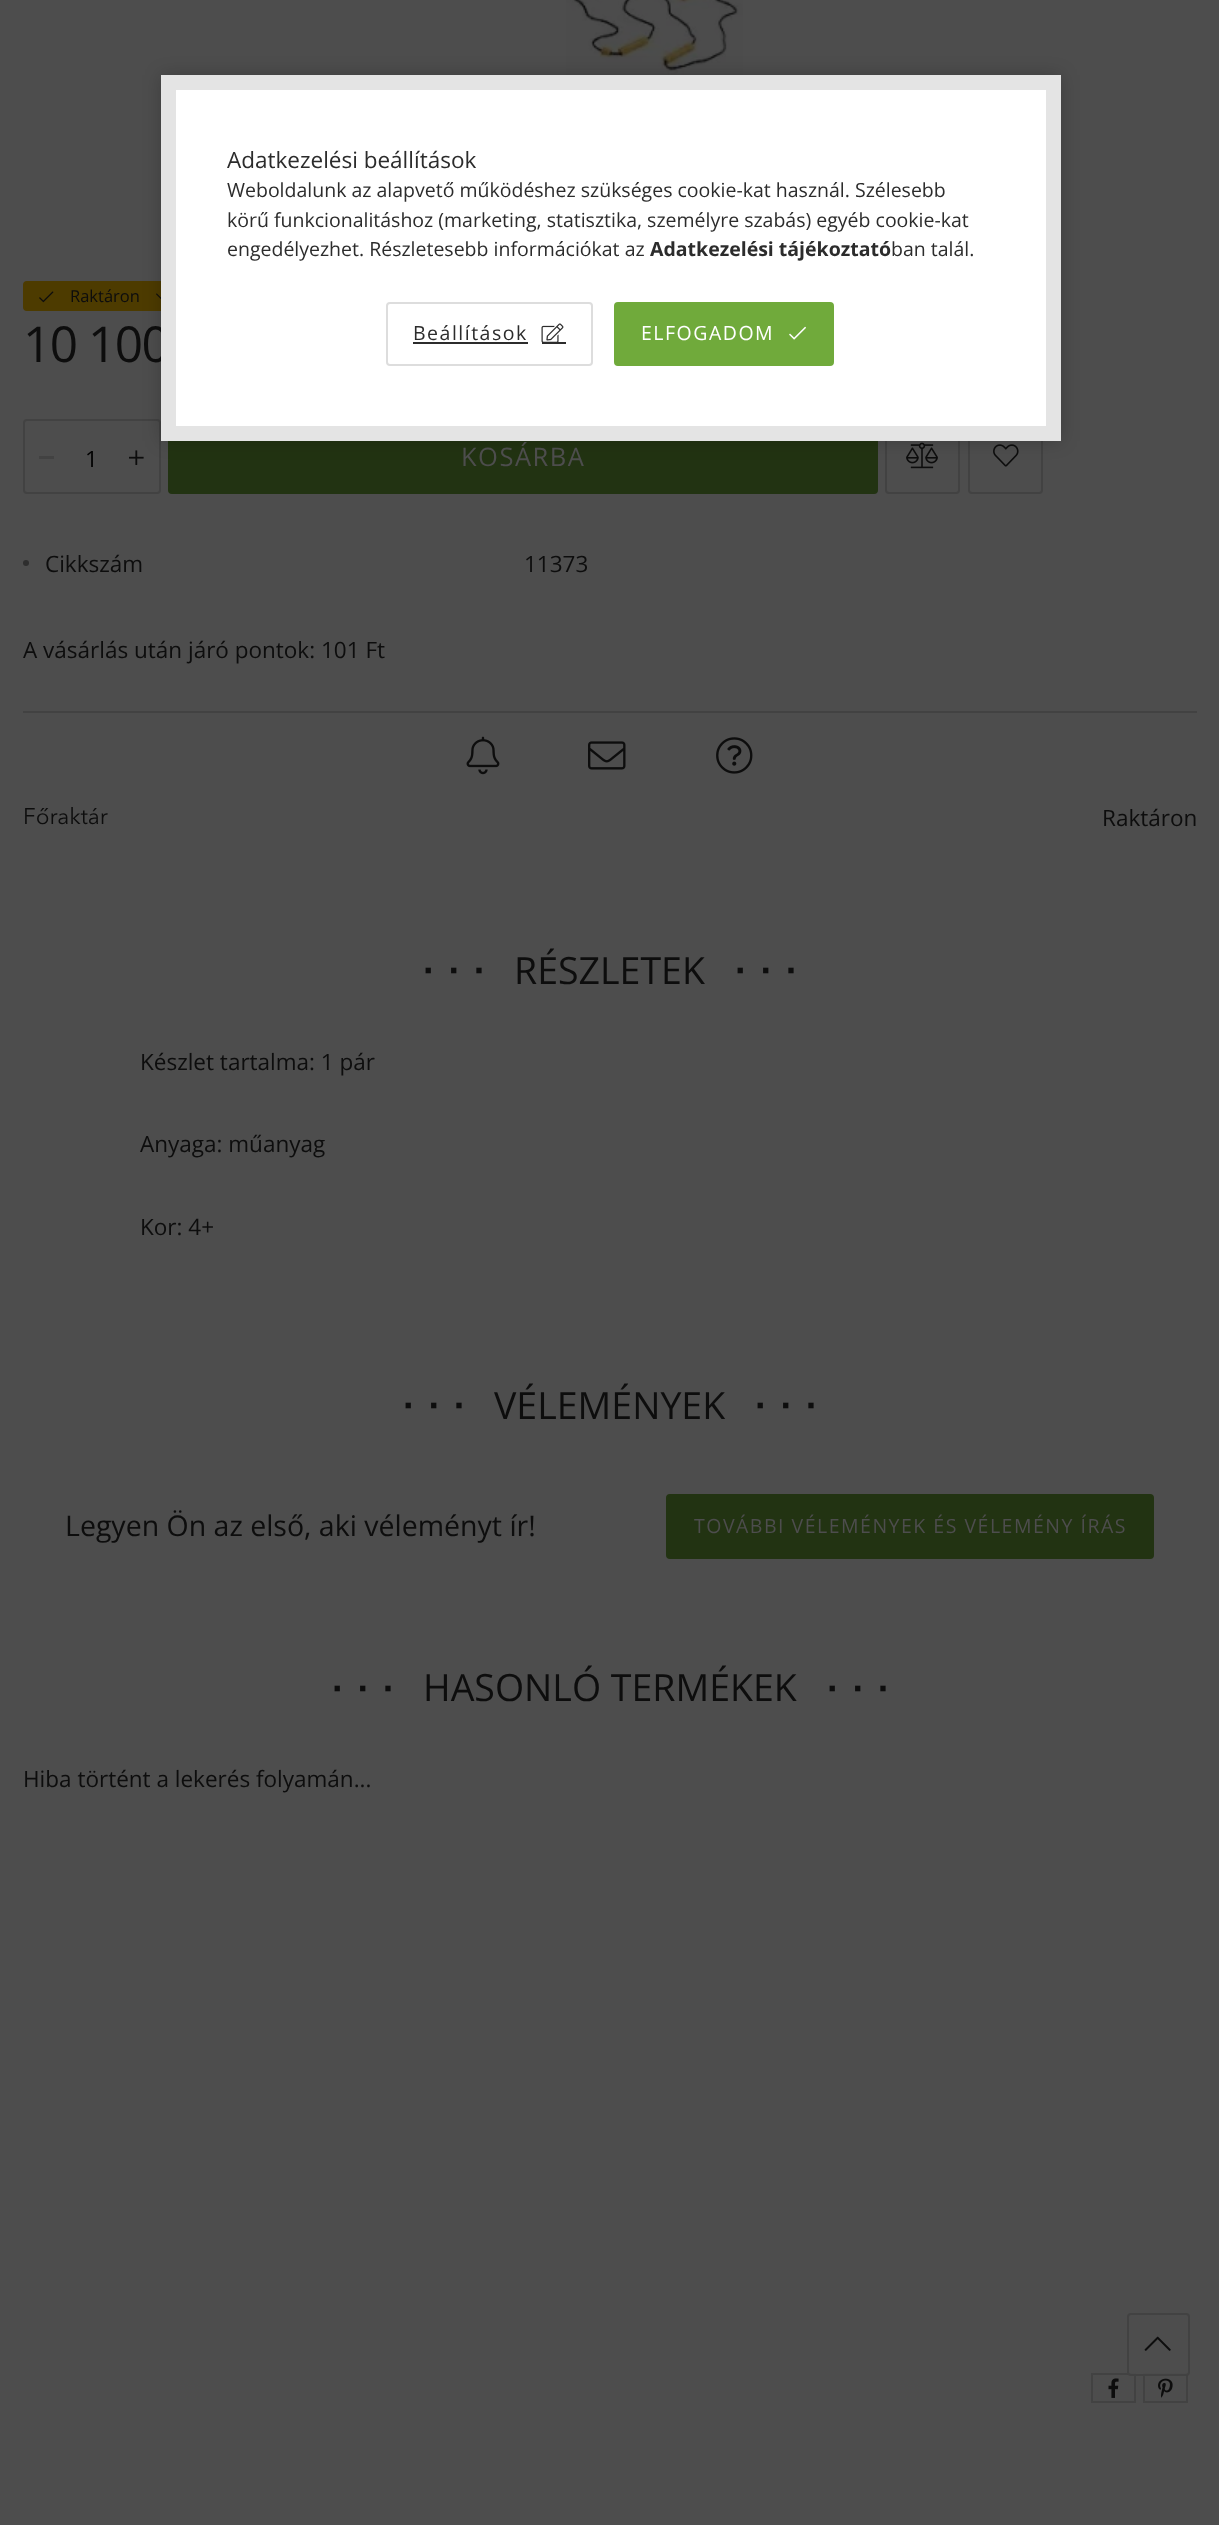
<!DOCTYPE html>
<meta charset="utf-8">
<style>body { margin: 0 } canvas { display: block }</style>
<canvas id="canvas" width="1219" height="2525"></canvas>
<img id="img1" src="img_03.png" hidden>
<img id="img2" src="img_05.png" hidden>
<img id="img3" src="img_06.png" hidden>
<img id="img4" src="img_07.png" hidden>
<img id="img5" src="img_08.png" hidden>
<img id="img6" src="img_04.png" hidden>
<img id="img7" src="img_09.png" hidden>
<img id="img8" src="img_10.png" hidden>
<img id="img9" src="img_11.png" hidden>
<img id="img10" src="img_12.png" hidden>
<img id="img11" src="img_13.png" hidden>
<img id="img12" src="img_14.png" hidden>
<img id="img13" src="img_02.png" hidden>
<img id="img14" src="img_01.png" hidden>
<script>
window.onload = function () {
	const canvas = document.getElementById("canvas");
	const ctx = canvas.getContext("2d");
	ctx.miterLimit = 4;
	ctx.fontKerning = "normal";
	function txt(s, x, y) {
		ctx.fillText(s, x, y);
	}
	function fill(x, y, w, h) {
		ctx.fillRect(x, y, w, h);
	}
	function img(id, x, y, w, h) {
		ctx.drawImage(document.getElementById(id), x, y, w, h);
	}

	ctx.fillStyle = "#4D4D4D";
	fill(0, 0, 1219, 2525);
	img("img1", 566, 0, 177, 75);
	ctx.fillStyle = "#4D3B00";
	ctx.beginPath();
	ctx.roundRect(24, 282, 163, 28, 3);
	ctx.fill();
	ctx.strokeStyle = "#4D3B00";
	ctx.lineWidth = 2;
	ctx.stroke();
	img("img2", 156, 293, 5, 6);
	ctx.beginPath();
	ctx.roundRect(24, 420, 136, 73, 3);
	ctx.strokeStyle = "#424242";
	ctx.stroke();
	img("img3", 129, 450, 15, 15);
	ctx.fillStyle = "#223312";
	ctx.beginPath();
	ctx.roundRect(169, 420, 708, 73, 3);
	ctx.fill();
	ctx.strokeStyle = "#223312";
	ctx.stroke();
	ctx.beginPath();
	ctx.roundRect(886, 420, 73, 73, 3);
	ctx.strokeStyle = "#424242";
	ctx.stroke();
	img("img4", 906, 442, 32, 27);
	ctx.beginPath();
	ctx.roundRect(969, 420, 73, 73, 3);
	ctx.stroke();
	img("img5", 993, 444, 26, 23);
	ctx.fillStyle = "rgba(0, 0, 0, 0.2)";
	ctx.filter = "blur(9px)";
	ctx.beginPath();
	ctx.rect(161, 75, 900, 366);
	ctx.fill();
	ctx.filter = "none";
	img("img6", 39, 291, 15, 12);
	ctx.fillStyle = "#424242";
	fill(39, 456, 15, 3);
	ctx.fillStyle = "#2E2E2E";
	ctx.beginPath();
	ctx.arc(26, 563, 3, 0, Math.PI * 2);
	ctx.fill();
	ctx.fillStyle = "#424242";
	fill(23, 711, 1174, 2);
	img("img7", 466, 736, 34, 39);
	img("img8", 588, 741, 38, 29);
	img("img9", 716, 737, 37, 37);
	ctx.fillStyle = "#223312";
	ctx.beginPath();
	ctx.roundRect(667, 1495, 486, 63, 3);
	ctx.fill();
	ctx.strokeStyle = "#223312";
	ctx.stroke();
	ctx.strokeStyle = "#424242";
	ctx.strokeRect(1092, 2374, 43, 28);
	img("img10", 1108, 2378, 11, 20);
	ctx.strokeRect(1144, 2374, 43, 28);
	img("img11", 1158, 2378, 15, 20);
	ctx.fillStyle = "rgba(77, 77, 77, 0.8)";
	ctx.beginPath();
	ctx.roundRect(1128, 2314, 61, 61, 3);
	ctx.fill();
	ctx.stroke();
	img("img12", 1144, 2336, 27, 15);
	ctx.font = "16.5px Open Sans";
	ctx.fillStyle = "#0D0D0D";
	txt("Raktáron", 70, 302);
	ctx.letterSpacing = "-1.5px";
	ctx.font = "49.5px Open Sans";
	txt("10 100", 23, 362);
	ctx.fillStyle = "#FFFFFF";
	ctx.beginPath();
	ctx.rect(168.5, 82.5, 885, 351);
	ctx.fill();
	ctx.strokeStyle = "#E4E4E4";
	ctx.lineWidth = 15;
	ctx.stroke();
	ctx.fillStyle = "#70AA3B";
	ctx.beginPath();
	ctx.roundRect(615, 303, 218, 62, 3);
	ctx.fill();
	ctx.strokeStyle = "#70AA3B";
	ctx.lineWidth = 2;
	ctx.stroke();
	img("img13", 789, 326, 17, 14);
	ctx.letterSpacing = "1.5px";
	ctx.font = "19.5px Open Sans";
	ctx.fillStyle = "#FFFFFF";
	txt("ELFOGADOM", 641, 340);
	ctx.beginPath();
	ctx.roundRect(387, 303, 205, 62, 3);
	ctx.strokeStyle = "#DDDDDD";
	ctx.stroke();
	ctx.fillStyle = "#2C2C2C";
	fill(542, 342, 24, 2);
	img("img14", 541, 323, 23, 20);
	txt("Beállítások", 413, 340);
	fill(413, 342, 115, 2);
	ctx.letterSpacing = "0px";
	txt("ban talál.", 891, 256);
	ctx.font = "bold 19.5px Open Sans";
	txt("Adatkezelési tájékoztató", 650, 256);
	ctx.font = "19.5px Open Sans";
	txt("engedélyezhet. Részletesebb információkat az", 227, 256);
	txt("körű funkcionalitáshoz (marketing, statisztika, személyre szabás) egyéb cookie-kat", 227, 227);
	txt("Weboldalunk az alapvető működéshez szükséges cookie-kat használ. Szélesebb", 227, 197);
	ctx.font = "22.5px Open Sans";
	txt("Adatkezelési beállítások", 227, 168);
	ctx.fillStyle = "#000000";
	txt("1", 85, 467);
	ctx.letterSpacing = "1.5px";
	ctx.font = "25.5px Open Sans";
	ctx.fillStyle = "#4D4D4D";
	txt("KOSÁRBA", 461, 466);
	ctx.letterSpacing = "0px";
	ctx.font = "22.5px Open Sans";
	ctx.fillStyle = "#0D0D0D";
	txt("Cikkszám", 45, 572);
	txt("11373", 524, 572);
	txt("A vásárlás után járó pontok: 101 Ft", 23, 658);
	ctx.font = "22.5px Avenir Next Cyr";
	txt("Főraktár", 23, 824);
	ctx.font = "22.5px Open Sans";
	txt("Raktáron", 1102, 826);
	ctx.letterSpacing = "15px";
	ctx.font = "bold 37.5px Liberation Sans";
	txt("∙∙∙", 423, 983);
	ctx.letterSpacing = "0px";
	ctx.font = "37.5px Open Sans";
	txt("RÉSZLETEK", 514, 984);
	ctx.letterSpacing = "15px";
	ctx.font = "bold 37.5px Liberation Sans";
	txt("∙∙∙", 735, 983);
	ctx.letterSpacing = "0px";
	ctx.font = "22.5px Open Sans";
	txt("Készlet tartalma: 1 pár", 140, 1070);
	txt("Anyaga: műanyag", 140, 1152);
	txt("Kor: 4+", 140, 1235);
	ctx.letterSpacing = "15px";
	ctx.font = "bold 37.5px Liberation Sans";
	txt("∙∙∙", 403, 1418);
	ctx.letterSpacing = "0px";
	ctx.font = "37.5px Open Sans";
	txt("VÉLEMÉNYEK", 494, 1419);
	ctx.letterSpacing = "15px";
	ctx.font = "bold 37.5px Liberation Sans";
	txt("∙∙∙", 755, 1418);
	ctx.letterSpacing = "0px";
	ctx.font = "28.5px Open Sans";
	txt("Legyen Ön az első, aki véleményt ír!", 65, 1536);
	ctx.letterSpacing = "1.5px";
	ctx.font = "19.5px Open Sans";
	ctx.fillStyle = "#4D4D4D";
	txt("TOVÁBBI VÉLEMÉNYEK ÉS VÉLEMÉNY ÍRÁS", 694, 1533);
	ctx.letterSpacing = "15px";
	ctx.font = "bold 37.5px Liberation Sans";
	ctx.fillStyle = "#0D0D0D";
	txt("∙∙∙", 332, 1701);
	ctx.letterSpacing = "0px";
	ctx.font = "37.5px Open Sans";
	txt("HASONLÓ TERMÉKEK", 423, 1701);
	ctx.letterSpacing = "15px";
	ctx.font = "bold 37.5px Liberation Sans";
	txt("∙∙∙", 827, 1701);
	ctx.letterSpacing = "0px";
	ctx.font = "22.5px Open Sans";
	txt("Hiba történt a lekerés folyamán...", 23, 1787);
};
</script>
